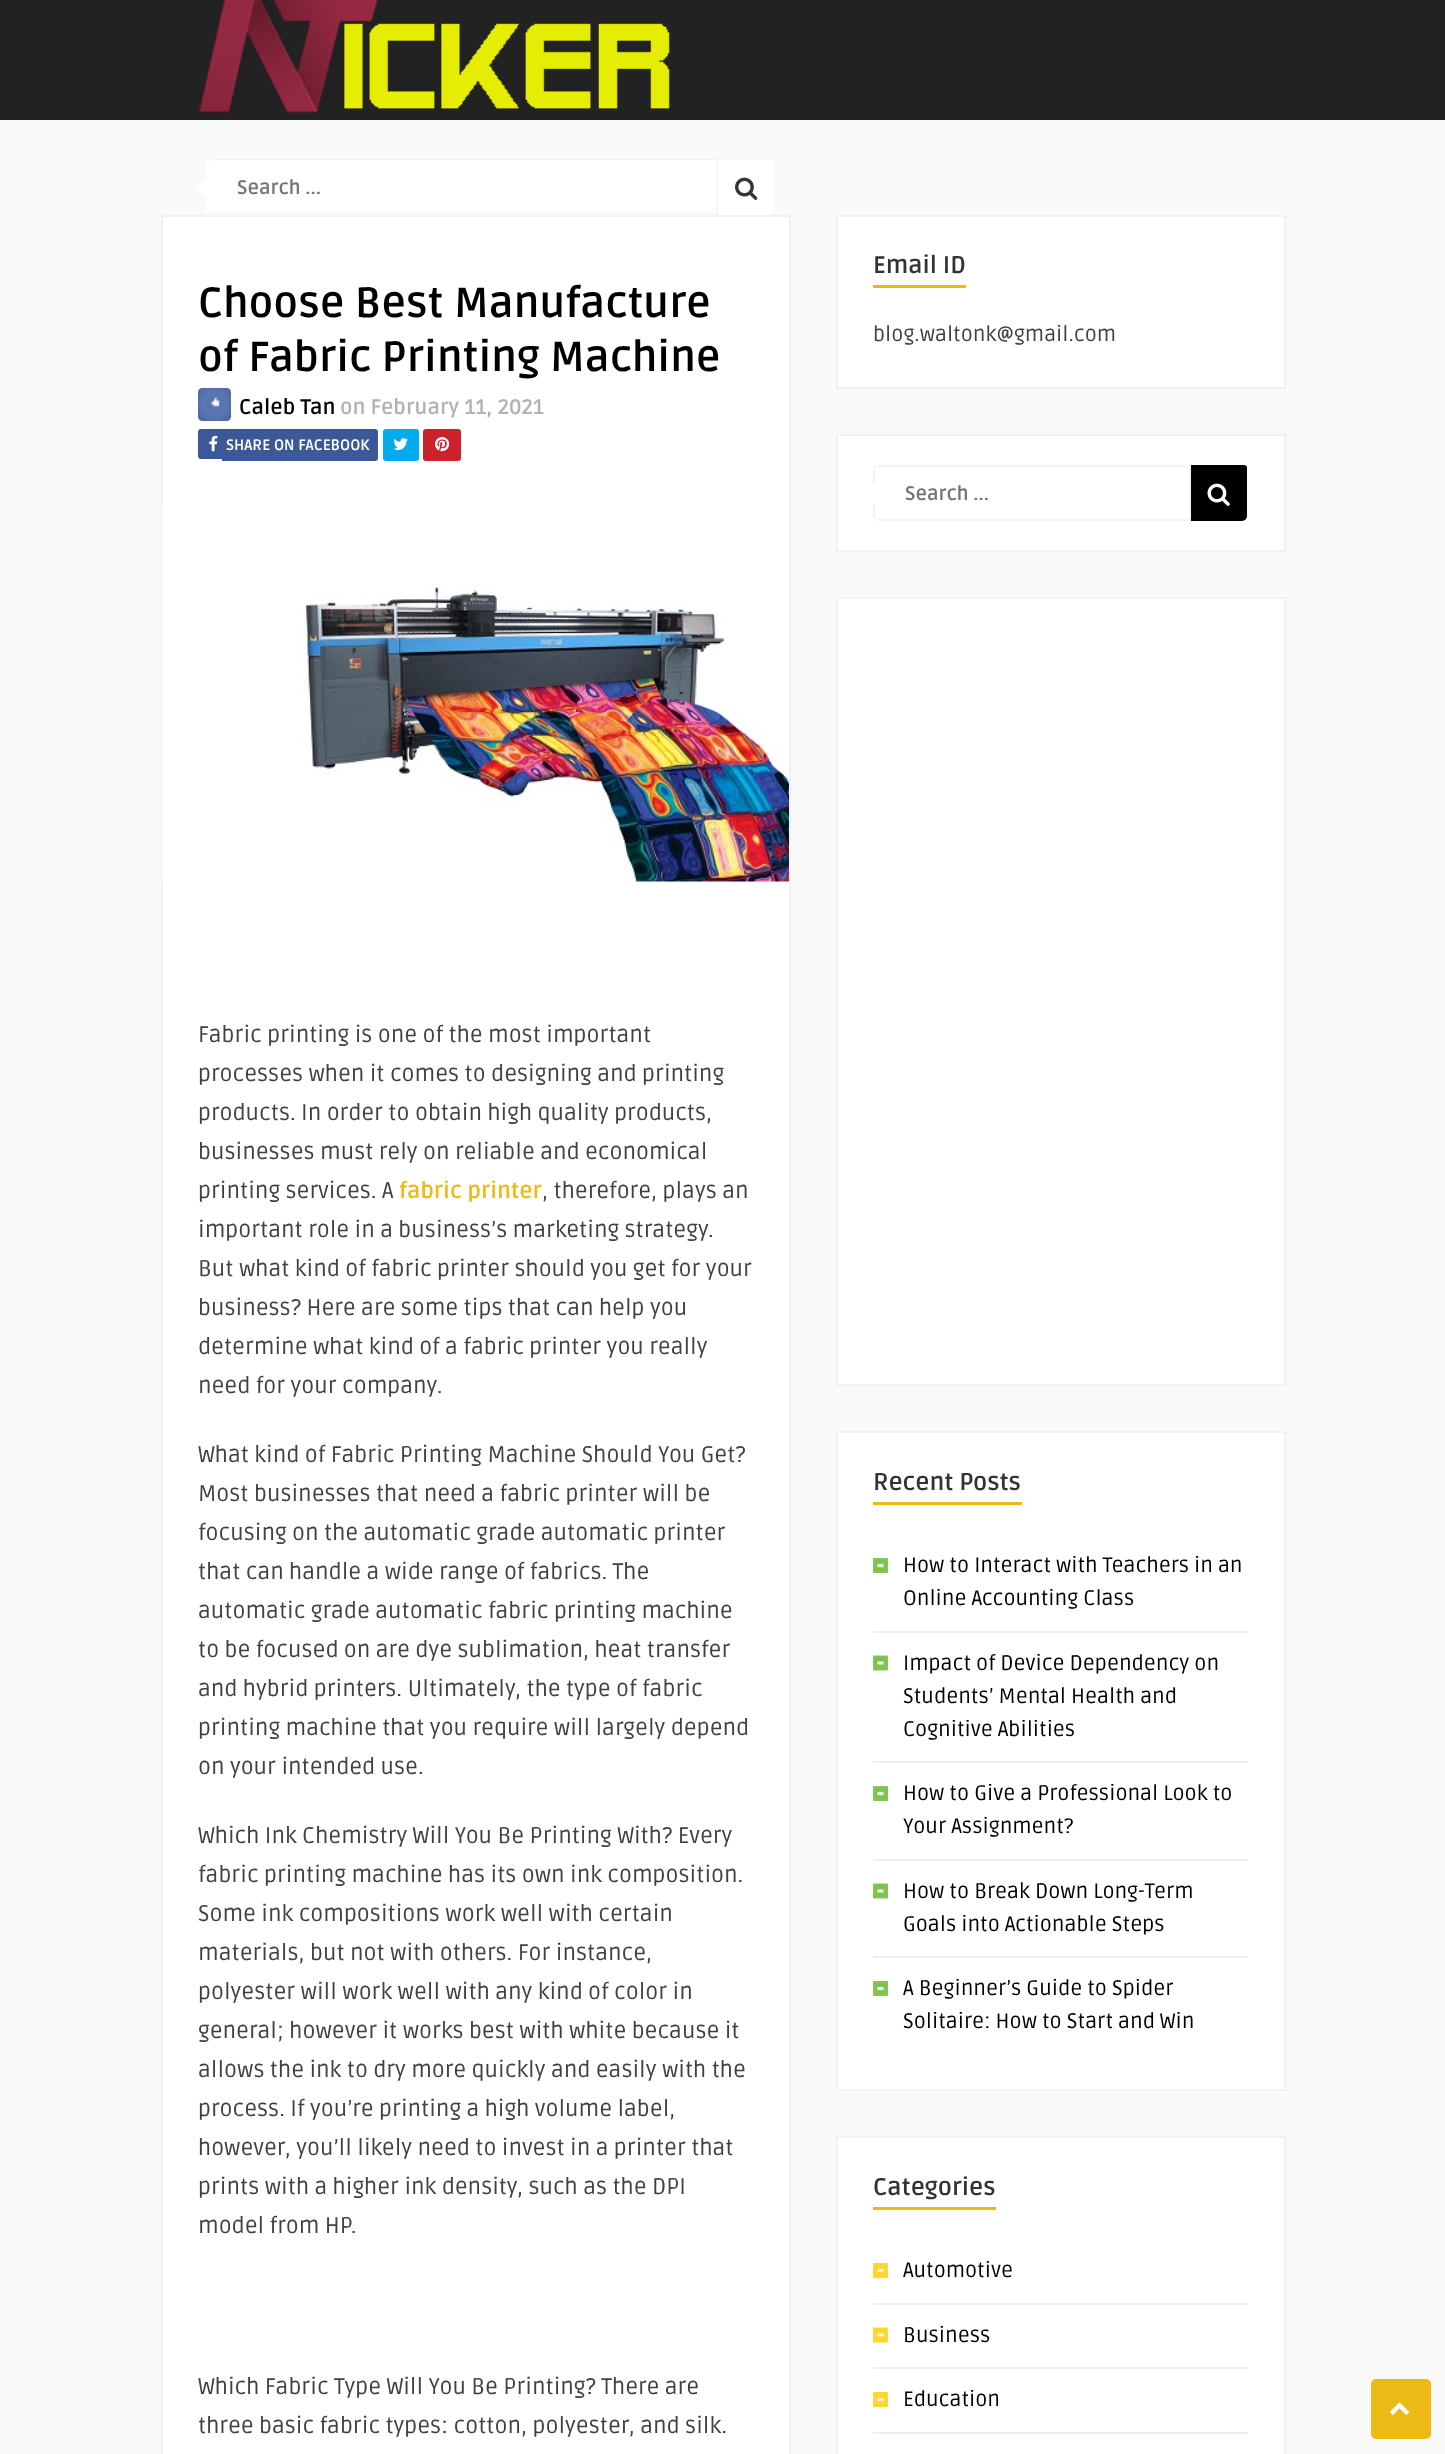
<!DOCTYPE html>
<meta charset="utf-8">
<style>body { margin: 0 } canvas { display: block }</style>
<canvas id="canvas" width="1445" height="2454"></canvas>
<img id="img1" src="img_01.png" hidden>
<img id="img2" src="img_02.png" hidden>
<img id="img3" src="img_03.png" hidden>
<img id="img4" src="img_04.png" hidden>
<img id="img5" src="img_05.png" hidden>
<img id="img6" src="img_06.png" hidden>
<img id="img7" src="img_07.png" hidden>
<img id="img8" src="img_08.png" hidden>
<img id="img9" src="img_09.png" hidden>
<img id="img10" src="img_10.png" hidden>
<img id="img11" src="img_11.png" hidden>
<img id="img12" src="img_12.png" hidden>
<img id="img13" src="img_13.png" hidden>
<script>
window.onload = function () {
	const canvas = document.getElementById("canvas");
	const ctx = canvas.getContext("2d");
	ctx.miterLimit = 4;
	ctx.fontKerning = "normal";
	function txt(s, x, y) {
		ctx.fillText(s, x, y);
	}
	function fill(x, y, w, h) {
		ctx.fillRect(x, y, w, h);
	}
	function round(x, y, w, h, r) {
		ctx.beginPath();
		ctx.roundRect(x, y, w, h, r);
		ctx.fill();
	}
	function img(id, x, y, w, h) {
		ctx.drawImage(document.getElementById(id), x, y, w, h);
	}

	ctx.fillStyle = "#F9F9F9";
	fill(0, 0, 1445, 2454);
	ctx.fillStyle = "#222222";
	fill(0, 0, 1445, 120);
	img("img1", 198, 0, 472, 113);
	ctx.fillStyle = "#FFFFFF";
	ctx.beginPath();
	ctx.roundRect(206, 159, 513, 56, [6, 0, 0, 6]);
	ctx.fill();
	ctx.fillStyle = "#F1F1F1";
	ctx.beginPath();
	ctx.moveTo(212, 159);
	ctx.bezierCurveTo(210, 159, 208, 160, 207, 161);
	ctx.lineTo(208, 162);
	ctx.bezierCurveTo(209, 161, 210, 160, 212, 160);
	ctx.lineTo(717, 160);
	ctx.lineTo(718, 159);
	ctx.closePath();
	ctx.fill();
	ctx.fillStyle = "#FFFFFF";
	ctx.beginPath();
	ctx.moveTo(207, 161);
	ctx.bezierCurveTo(206, 162, 206, 164, 206, 165);
	ctx.lineTo(206, 208);
	ctx.bezierCurveTo(206, 210, 206, 212, 208, 212);
	ctx.bezierCurveTo(208, 211, 207, 210, 207, 208);
	ctx.lineTo(207, 165);
	ctx.bezierCurveTo(207, 164, 207, 163, 208, 162);
	ctx.closePath();
	ctx.fill();
	ctx.beginPath();
	ctx.moveTo(211.5, 172.5);
	ctx.lineTo(211.5, 202.5);
	ctx.lineTo(196.5, 187.5);
	ctx.closePath();
	ctx.fill();
	ctx.fillStyle = "#F1F1F1";
	ctx.beginPath();
	ctx.moveTo(718, 160);
	ctx.lineTo(718, 214);
	ctx.lineTo(717, 213);
	ctx.lineTo(717, 160);
	ctx.closePath();
	ctx.fill();
	ctx.beginPath();
	ctx.moveTo(718, 214);
	ctx.lineTo(717, 213);
	ctx.lineTo(212, 213);
	ctx.bezierCurveTo(210, 213, 209, 212, 208, 212);
	ctx.bezierCurveTo(208, 214, 210, 214, 212, 214);
	ctx.closePath();
	ctx.fill();
	ctx.fillStyle = "#FFFFFF";
	ctx.beginPath();
	ctx.roundRect(719, 159, 55, 56, [0, 6, 6, 0]);
	ctx.fill();
	img("img2", 735, 177, 23, 23);
	ctx.beginPath();
	ctx.rect(162, 216, 628, 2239);
	ctx.fill();
	ctx.strokeStyle = "#F1F1F1";
	ctx.lineWidth = 2;
	ctx.stroke();
	img("img3", 198, 388, 33, 33);
	ctx.fillStyle = "#3B5998";
	ctx.beginPath();
	ctx.roundRect(198, 429, 24, 30, [3, 0, 0, 3]);
	ctx.fill();
	fill(222, 429, 5, 32);
	ctx.beginPath();
	ctx.roundRect(227, 429, 151, 32, [0, 3, 3, 0]);
	ctx.fill();
	img("img4", 209, 435, 9, 17);
	ctx.fillStyle = "#00ACED";
	round(383, 429, 36, 32, 3);
	img("img5", 393, 438, 15, 12);
	ctx.fillStyle = "#CA212A";
	round(423, 429, 38, 32, 3);
	img("img6", 435, 437, 15, 15);
	img("img7", 162, 505, 627, 377);
	ctx.fillStyle = "#FFFFFF";
	ctx.beginPath();
	ctx.rect(837, 216, 448, 172);
	ctx.fill();
	ctx.stroke();
	ctx.fillStyle = "#EBBA16";
	fill(873, 285, 93, 3);
	ctx.fillStyle = "#FFFFFF";
	ctx.beginPath();
	ctx.rect(837, 435, 448, 116);
	ctx.fill();
	ctx.stroke();
	ctx.beginPath();
	ctx.roundRect(874, 466, 316, 54, [4, 0, 0, 4]);
	ctx.strokeStyle = "#F5F4F4";
	ctx.stroke();
	ctx.beginPath();
	ctx.moveTo(879, 478.5);
	ctx.lineTo(879, 508.5);
	ctx.lineTo(864, 493.5);
	ctx.closePath();
	ctx.fill();
	ctx.fillStyle = "#000000";
	ctx.beginPath();
	ctx.roundRect(1191, 465, 56, 56, [0, 3, 5, 0]);
	ctx.fill();
	img("img8", 1207, 483, 23, 23);
	ctx.fillStyle = "#FFFFFF";
	ctx.beginPath();
	ctx.rect(837, 598, 448, 787);
	ctx.fill();
	ctx.strokeStyle = "#F1F1F1";
	ctx.stroke();
	ctx.beginPath();
	ctx.rect(837, 1432, 448, 658);
	ctx.fill();
	ctx.stroke();
	ctx.fillStyle = "#EBBA16";
	fill(873, 1502, 149, 3);
	img("img9", 873, 1558, 15, 15);
	ctx.fillStyle = "#F0EEE9";
	fill(873, 1631, 375, 2);
	img("img10", 873, 1655, 15, 16);
	fill(873, 1761, 375, 2);
	img("img9", 873, 1786, 15, 15);
	fill(873, 1859, 375, 2);
	img("img10", 873, 1883, 15, 16);
	fill(873, 1956, 375, 2);
	img("img9", 873, 1981, 15, 15);
	ctx.fillStyle = "#FFFFFF";
	ctx.beginPath();
	ctx.rect(837, 2137, 448, 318);
	ctx.fill();
	ctx.stroke();
	ctx.fillStyle = "#EBBA16";
	fill(873, 2207, 123, 3);
	img("img11", 873, 2263, 15, 15);
	ctx.fillStyle = "#F0EEE9";
	fill(873, 2303, 375, 2);
	img("img12", 873, 2327, 15, 16);
	fill(873, 2367, 375, 2);
	img("img11", 873, 2392, 15, 15);
	fill(873, 2432, 375, 2);
	ctx.fillStyle = "#EBBA16";
	round(1371, 2379, 60, 60, 5);
	img("img13", 1390, 2402, 19, 13);
	ctx.font = "bold 19.5px Ruda";
	ctx.fillStyle = "#757575";
	txt("Search ...", 237, 194);
	ctx.font = "bold 42px Ruda";
	ctx.fillStyle = "#000000";
	txt("Choose Best Manufacture", 198, 317);
	txt("of Fabric Printing Machine", 198, 371);
	ctx.font = "bold 21px Ruda";
	txt("Caleb Tan", 239, 414);
	ctx.fillStyle = "#B3B2B2";
	txt("on February 11, 2021", 340, 414);
	ctx.font = "bold 15px Ruda";
	ctx.fillStyle = "#FFFFFF";
	txt("SHARE ON FACEBOOK", 226, 450);
	ctx.font = "22.5px Ruda";
	ctx.fillStyle = "#414141";
	txt("Fabric printing is one of the most important", 198, 1042);
	txt("processes when it comes to designing and printing", 198, 1081);
	txt("products. In order to obtain high quality products,", 198, 1120);
	txt("businesses must rely on reliable and economical", 198, 1159);
	txt("printing services. A", 198, 1198);
	ctx.font = "bold 22.5px Ruda";
	ctx.fillStyle = "#EBBA16";
	txt("fabric printer", 399, 1198);
	ctx.font = "22.5px Ruda";
	ctx.fillStyle = "#414141";
	txt(", therefore, plays an", 542, 1198);
	txt("important role in a business’s marketing strategy.", 198, 1237);
	txt("But what kind of fabric printer should you get for your", 198, 1276);
	txt("business? Here are some tips that can help you", 198, 1315);
	txt("determine what kind of a fabric printer you really", 198, 1354);
	txt("need for your company.", 198, 1393);
	txt("What kind of Fabric Printing Machine Should You Get?", 198, 1462);
	txt("Most businesses that need a fabric printer will be", 198, 1501);
	txt("focusing on the automatic grade automatic printer", 198, 1540);
	txt("that can handle a wide range of fabrics. The", 198, 1579);
	txt("automatic grade automatic fabric printing machine", 198, 1618);
	txt("to be focused on are dye sublimation, heat transfer", 198, 1657);
	txt("and hybrid printers. Ultimately, the type of fabric", 198, 1696);
	txt("printing machine that you require will largely depend", 198, 1735);
	txt("on your intended use.", 198, 1774);
	txt("Which Ink Chemistry Will You Be Printing With? Every", 198, 1843);
	txt("fabric printing machine has its own ink composition.", 198, 1882);
	txt("Some ink compositions work well with certain", 198, 1921);
	txt("materials, but not with others. For instance,", 198, 1960);
	txt("polyester will work well with any kind of color in", 198, 1999);
	txt("general; however it works best with white because it", 198, 2038);
	txt("allows the ink to dry more quickly and easily with the", 198, 2077);
	txt("process. If you’re printing a high volume label,", 198, 2116);
	txt("however, you’ll likely need to invest in a printer that", 198, 2155);
	txt("prints with a higher ink density, such as the DPI", 198, 2194);
	txt("model from HP.", 198, 2233);
	txt("Which Fabric Type Will You Be Printing? There are", 198, 2394);
	txt("three basic fabric types: cotton, polyester, and silk.", 198, 2433);
	ctx.font = "bold 24px Ruda";
	ctx.fillStyle = "#333333";
	txt("Email ID", 873, 273);
	ctx.font = "21px Ruda";
	ctx.fillStyle = "#414141";
	txt("blog.waltonk@gmail.com", 873, 341);
	ctx.font = "bold 19.5px Ruda";
	ctx.fillStyle = "#757575";
	txt("Search ...", 905, 500);
	ctx.font = "bold 24px Ruda";
	ctx.fillStyle = "#333333";
	txt("Recent Posts", 873, 1490);
	ctx.font = "21px Ruda";
	ctx.fillStyle = "#000000";
	txt("How to Interact with Teachers in an", 903, 1572);
	txt("Online Accounting Class", 903, 1605);
	txt("Impact of Device Dependency on", 903, 1670);
	txt("Students’ Mental Health and", 903, 1703);
	txt("Cognitive Abilities", 903, 1736);
	txt("How to Give a Professional Look to", 903, 1800);
	txt("Your Assignment?", 903, 1833);
	txt("How to Break Down Long-Term", 903, 1898);
	txt("Goals into Actionable Steps", 903, 1931);
	txt("A Beginner’s Guide to Spider", 903, 1995);
	txt("Solitaire: How to Start and Win", 903, 2028);
	ctx.font = "bold 24px Ruda";
	ctx.fillStyle = "#333333";
	txt("Categories", 873, 2195);
	ctx.font = "21px Ruda";
	ctx.fillStyle = "#000000";
	txt("Automotive", 903, 2277);
	txt("Business", 903, 2342);
	txt("Education", 903, 2406);
};
</script>
